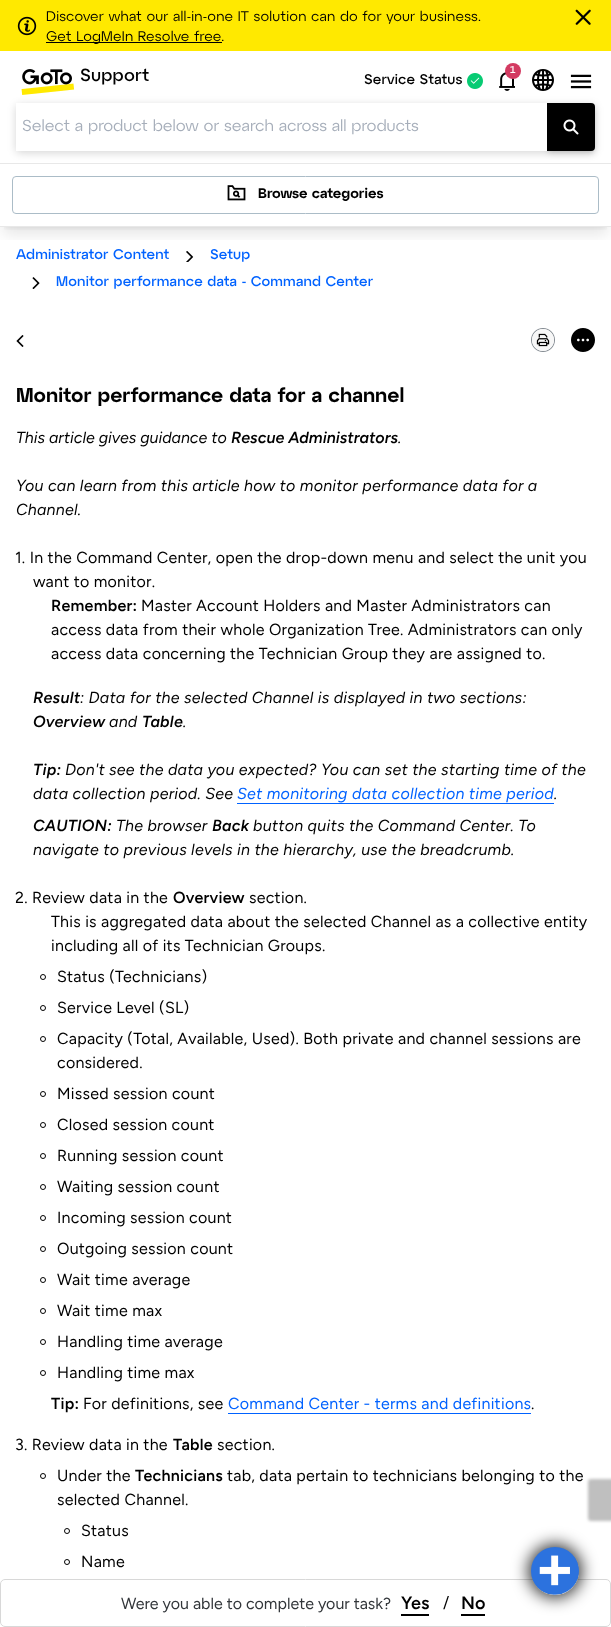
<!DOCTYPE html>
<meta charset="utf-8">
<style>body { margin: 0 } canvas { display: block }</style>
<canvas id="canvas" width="611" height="1627"></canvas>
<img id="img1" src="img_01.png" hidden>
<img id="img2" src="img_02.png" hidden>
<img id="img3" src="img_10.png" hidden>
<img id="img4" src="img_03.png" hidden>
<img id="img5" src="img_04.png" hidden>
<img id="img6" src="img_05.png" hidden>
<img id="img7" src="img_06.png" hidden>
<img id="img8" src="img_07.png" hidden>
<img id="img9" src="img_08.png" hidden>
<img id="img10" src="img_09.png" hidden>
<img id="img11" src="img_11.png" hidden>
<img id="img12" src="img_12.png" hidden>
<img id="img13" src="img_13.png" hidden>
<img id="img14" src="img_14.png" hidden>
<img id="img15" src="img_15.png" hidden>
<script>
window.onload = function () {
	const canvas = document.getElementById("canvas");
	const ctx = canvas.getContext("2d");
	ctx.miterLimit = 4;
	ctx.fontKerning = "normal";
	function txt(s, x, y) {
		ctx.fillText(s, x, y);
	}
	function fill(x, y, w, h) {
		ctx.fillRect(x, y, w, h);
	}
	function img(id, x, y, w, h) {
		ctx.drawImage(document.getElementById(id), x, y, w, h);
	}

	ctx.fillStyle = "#FFFFFF";
	fill(0, 0, 611, 1627);
	ctx.fillStyle = "#FFE900";
	fill(0, 0, 611, 51);
	img("img1", 17, 16, 20, 20);
	ctx.fillStyle = "#000000";
	fill(46, 42, 176, 1);
	img("img2", 575, 9, 16, 16);
	ctx.save();
	ctx.beginPath();
	ctx.rect(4, 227, 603, 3);
	ctx.clip();
	ctx.fillStyle = "rgba(0, 0, 0, 0.1)";
	ctx.filter = "blur(3px)";
	ctx.beginPath();
	ctx.rect(4, 59, 603, 168);
	ctx.fill();
	ctx.filter = "none";
	ctx.restore();
	img("img3", 186, 251, 8, 11);
	ctx.save();
	ctx.beginPath();
	ctx.rect(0, 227, 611, 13);
	ctx.clip();
	ctx.fillStyle = "rgba(0, 0, 0, 0.1)";
	ctx.filter = "blur(7.5px)";
	ctx.beginPath();
	ctx.rect(3, 64, 605, 170);
	ctx.fill();
	ctx.filter = "none";
	ctx.restore();
	img("img4", 21, 69, 54, 26);
	img("img5", 467, 73, 16, 16);
	img("img6", 499, 72, 16, 19);
	ctx.fillStyle = "#D33A61";
	ctx.beginPath();
	ctx.arc(513, 71, 8, 0, Math.PI * 2);
	ctx.fill();
	img("img7", 532, 69, 22, 22);
	img("img8", 570, 74, 22, 15);
	ctx.fillStyle = "#E8E8E8";
	fill(0, 163, 611, 1);
	ctx.fillStyle = "rgba(0, 0, 0, 0.16)";
	ctx.filter = "blur(4px)";
	ctx.beginPath();
	ctx.roundRect(16, 105, 579, 48, 4);
	ctx.fill();
	ctx.filter = "none";
	ctx.fillStyle = "rgba(0, 0, 0, 0.1)";
	ctx.filter = "blur(2px)";
	ctx.beginPath();
	ctx.roundRect(549, 107, 44, 44, 2);
	ctx.fill();
	ctx.filter = "none";
	ctx.filter = "blur(3px)";
	ctx.beginPath();
	ctx.roundRect(548, 108, 46, 46, 3);
	ctx.fill();
	ctx.filter = "none";
	ctx.fillStyle = "#FFFFFF";
	fill(16, 103, 531, 48);
	ctx.fillStyle = "#000000";
	ctx.beginPath();
	ctx.roundRect(547, 103, 48, 48, [0, 4, 4, 0]);
	ctx.fill();
	img("img9", 563, 119, 16, 16);
	ctx.fillStyle = "#E8E8E8";
	fill(0, 226, 611, 1);
	ctx.beginPath();
	ctx.roundRect(12.5, 176.5, 586, 37, 3.5);
	ctx.strokeStyle = "#ABBCC7";
	ctx.stroke();
	img("img10", 227, 185, 19, 16);
	img("img11", 32, 277, 8, 12);
	img("img12", 16, 335, 8, 12);
	img("img13", 531, 328, 24, 24);
	img("img14", 571, 328, 24, 24);
	ctx.fillStyle = "#0062FF";
	fill(237, 803, 317, 1);
	ctx.beginPath();
	ctx.arc(43, 977, 2.5, 0, Math.PI * 2);
	ctx.strokeStyle = "#000000";
	ctx.stroke();
	ctx.beginPath();
	ctx.arc(43, 1008, 2.5, 0, Math.PI * 2);
	ctx.stroke();
	ctx.beginPath();
	ctx.arc(43, 1039, 2.5, 0, Math.PI * 2);
	ctx.stroke();
	ctx.beginPath();
	ctx.arc(43, 1094, 2.5, 0, Math.PI * 2);
	ctx.stroke();
	ctx.beginPath();
	ctx.arc(43, 1125, 2.5, 0, Math.PI * 2);
	ctx.stroke();
	ctx.beginPath();
	ctx.arc(43, 1156, 2.5, 0, Math.PI * 2);
	ctx.stroke();
	ctx.beginPath();
	ctx.arc(43, 1187, 2.5, 0, Math.PI * 2);
	ctx.stroke();
	ctx.beginPath();
	ctx.arc(43, 1218, 2.5, 0, Math.PI * 2);
	ctx.stroke();
	ctx.beginPath();
	ctx.arc(43, 1249, 2.5, 0, Math.PI * 2);
	ctx.stroke();
	ctx.beginPath();
	ctx.arc(43, 1280, 2.5, 0, Math.PI * 2);
	ctx.stroke();
	ctx.beginPath();
	ctx.arc(43, 1311, 2.5, 0, Math.PI * 2);
	ctx.stroke();
	ctx.beginPath();
	ctx.arc(43, 1342, 2.5, 0, Math.PI * 2);
	ctx.stroke();
	ctx.beginPath();
	ctx.arc(43, 1373, 2.5, 0, Math.PI * 2);
	ctx.stroke();
	fill(228, 1413, 303, 1);
	ctx.beginPath();
	ctx.arc(43, 1476, 2.5, 0, Math.PI * 2);
	ctx.stroke();
	ctx.beginPath();
	ctx.arc(67, 1531, 2.5, 0, Math.PI * 2);
	ctx.stroke();
	ctx.beginPath();
	ctx.arc(67, 1562, 2.5, 0, Math.PI * 2);
	ctx.stroke();
	ctx.beginPath();
	ctx.roundRect(0.5, 1579.5, 610, 47, 4.5);
	ctx.strokeStyle = "#D8D8D8";
	ctx.stroke();
	ctx.fillStyle = "#000000";
	fill(401, 1614, 28, 2);
	fill(461, 1614, 24, 2);
	ctx.fillStyle = "rgba(0, 0, 0, 0.25)";
	ctx.filter = "blur(1.5px)";
	ctx.beginPath();
	ctx.roundRect(588, 1479, 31, 42, 3);
	ctx.fill();
	ctx.filter = "none";
	ctx.fillStyle = "rgba(0, 0, 0, 0.8)";
	ctx.filter = "blur(8px)";
	ctx.beginPath();
	ctx.roundRect(528, 1544, 54, 54, 27);
	ctx.fill();
	ctx.filter = "none";
	img("img15", 531, 1547, 48, 48);
	ctx.letterSpacing = "0.2px";
	ctx.font = "14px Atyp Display";
	ctx.fillStyle = "#000000";
	txt("Discover what our all-in-one IT solution can do for your business.", 46, 21);
	txt("Get LogMeIn Resolve free.", 46, 41);
	ctx.letterSpacing = "0.25px";
	ctx.font = "500 17.5px Atyp Display";
	txt("Support", 80, 81);
	ctx.letterSpacing = "0.2px";
	ctx.font = "500 14px Atyp Display";
	txt("Service Status", 364, 84);
	ctx.font = "500 10px Atyp Display";
	ctx.fillStyle = "#FFFFFF";
	txt("1", 510, 73);
	ctx.letterSpacing = "0px";
	ctx.font = "16px Atyp Display";
	ctx.fillStyle = "#A6AEBA";
	txt("Select a product below or search across all products", 22, 131);
	ctx.font = "600 14px Atyp Display";
	ctx.fillStyle = "#000000";
	txt("Browse categories", 258, 198);
	ctx.letterSpacing = "0.2px";
	ctx.font = "500 14px Atyp Display";
	ctx.fillStyle = "#0062FF";
	txt("Administrator Content", 16, 259);
	txt("Setup", 210, 259);
	txt("Monitor performance data - Command Center", 56, 286);
	ctx.letterSpacing = "0px";
	ctx.font = "600 20px Atyp Display";
	ctx.fillStyle = "#000000";
	txt("Monitor performance data for a channel", 16, 402);
	ctx.font = "italic 16px Figtree";
	txt("This article gives guidance to", 16, 443);
	ctx.font = "italic 600 16px Figtree";
	txt("Rescue Administrators", 231, 443);
	ctx.font = "italic 16px Figtree";
	txt(".", 398, 443);
	ctx.letterSpacing = "0.25px";
	txt("You can learn from this article how to monitor performance data for a", 16, 491);
	txt("Channel.", 16, 515);
	ctx.font = "16px Figtree";
	txt("1. In the Command Center, open the drop-down menu and select the unit you", 15, 563);
	txt("want to monitor.", 33, 587);
	ctx.font = "600 16px Figtree";
	txt("Remember:", 51, 611);
	ctx.font = "16px Figtree";
	txt("Master Account Holders and Master Administrators can", 141, 611);
	txt("access data from their whole Organization Tree. Administrators can only", 51, 635);
	txt("access data concerning the Technician Group they are assigned to.", 51, 659);
	ctx.font = "italic 600 16px Figtree";
	txt("Result", 33, 703);
	ctx.font = "italic 16px Figtree";
	txt(": Data for the selected Channel is displayed in two sections:", 80, 703);
	ctx.font = "italic 600 16px Figtree";
	txt("Overview", 33, 727);
	ctx.font = "italic 16px Figtree";
	txt("and", 109, 727);
	ctx.font = "italic 600 16px Figtree";
	txt("Table", 142, 727);
	ctx.font = "italic 16px Figtree";
	txt(".", 183, 727);
	ctx.font = "italic 600 16px Figtree";
	txt("Tip:", 33, 775);
	ctx.font = "italic 16px Figtree";
	txt("Don't see the data you expected? You can set the starting time of the", 65, 775);
	txt("data collection period. See", 33, 799);
	ctx.fillStyle = "#0062FF";
	txt("Set monitoring data collection time period", 237, 799);
	ctx.fillStyle = "#000000";
	txt(".", 554, 799);
	ctx.font = "italic 600 16px Figtree";
	txt("CAUTION:", 33, 831);
	ctx.font = "italic 16px Figtree";
	txt("The browser", 116, 831);
	ctx.font = "italic 600 16px Figtree";
	txt("Back", 212, 831);
	ctx.font = "italic 16px Figtree";
	txt("button quits the Command Center. To", 253, 831);
	txt("navigate to previous levels in the hierarchy, use the breadcrumb.", 33, 855);
	ctx.font = "16px Figtree";
	txt("2. Review data in the", 15, 903);
	ctx.font = "600 16px Figtree";
	txt("Overview", 173, 903);
	ctx.font = "16px Figtree";
	txt("section.", 249, 903);
	txt("This is aggregated data about the selected Channel as a collective entity", 51, 927);
	txt("including all of its Technician Groups.", 51, 951);
	txt("Status (Technicians)", 57, 982);
	txt("Service Level (SL)", 57, 1013);
	txt("Capacity (Total, Available, Used). Both private and channel sessions are", 57, 1044);
	txt("considered.", 57, 1068);
	txt("Missed session count", 57, 1099);
	txt("Closed session count", 57, 1130);
	txt("Running session count", 57, 1161);
	txt("Waiting session count", 57, 1192);
	txt("Incoming session count", 57, 1223);
	txt("Outgoing session count", 57, 1254);
	txt("Wait time average", 57, 1285);
	txt("Wait time max", 57, 1316);
	txt("Handling time average", 57, 1347);
	txt("Handling time max", 57, 1378);
	ctx.font = "600 16px Figtree";
	txt("Tip:", 51, 1409);
	ctx.font = "16px Figtree";
	txt("For definitions, see", 83, 1409);
	ctx.fillStyle = "#0062FF";
	txt("Command Center - terms and definitions", 228, 1409);
	ctx.fillStyle = "#000000";
	txt(".", 531, 1409);
	txt("3. Review data in the", 15, 1450);
	ctx.font = "600 16px Figtree";
	txt("Table", 173, 1450);
	ctx.font = "16px Figtree";
	txt("section.", 217, 1450);
	txt("Under the", 57, 1481);
	ctx.font = "600 16px Figtree";
	txt("Technicians", 135, 1481);
	ctx.font = "16px Figtree";
	txt("tab, data pertain to technicians belonging to the", 227, 1481);
	txt("selected Channel.", 57, 1505);
	txt("Status", 81, 1536);
	txt("Name", 81, 1567);
	ctx.letterSpacing = "0px";
	ctx.fillStyle = "#32363A";
	txt("Were you able to complete your task?", 121, 1609);
	ctx.font = "600 18px Figtree";
	ctx.fillStyle = "#000000";
	txt("Yes", 401, 1609);
	ctx.font = "16px Figtree";
	txt("/", 443, 1608);
	ctx.font = "600 18px Figtree";
	txt("No", 461, 1609);
};
</script>
